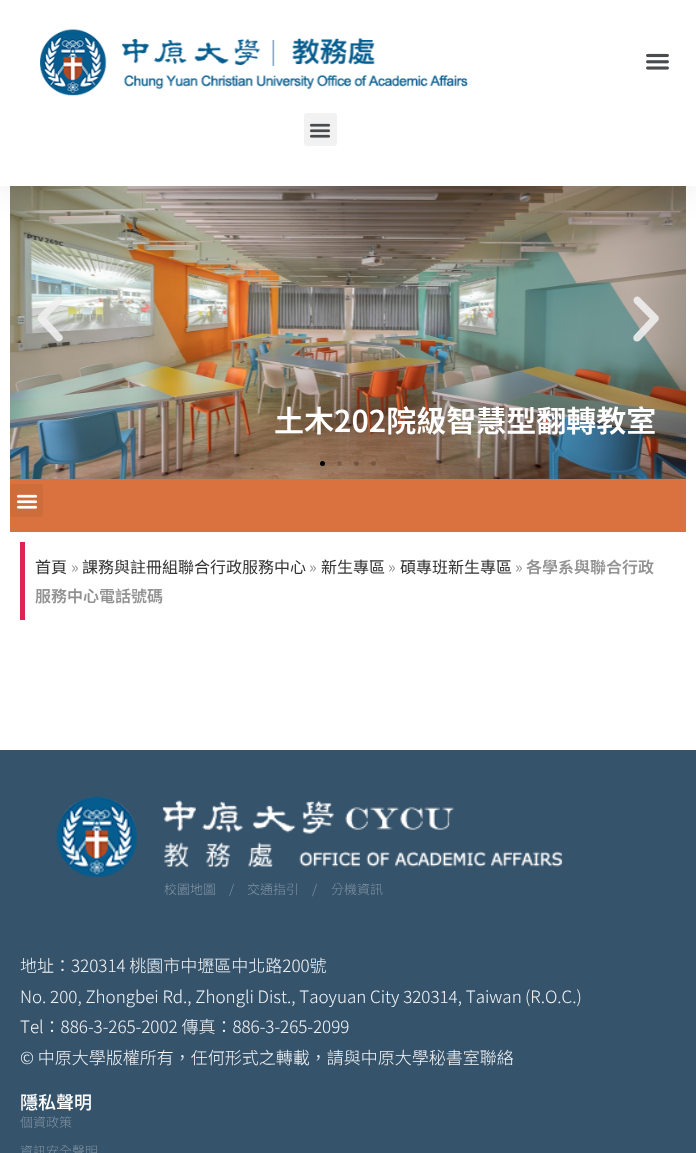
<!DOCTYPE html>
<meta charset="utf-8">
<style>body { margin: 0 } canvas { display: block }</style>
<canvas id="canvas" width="696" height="1153"></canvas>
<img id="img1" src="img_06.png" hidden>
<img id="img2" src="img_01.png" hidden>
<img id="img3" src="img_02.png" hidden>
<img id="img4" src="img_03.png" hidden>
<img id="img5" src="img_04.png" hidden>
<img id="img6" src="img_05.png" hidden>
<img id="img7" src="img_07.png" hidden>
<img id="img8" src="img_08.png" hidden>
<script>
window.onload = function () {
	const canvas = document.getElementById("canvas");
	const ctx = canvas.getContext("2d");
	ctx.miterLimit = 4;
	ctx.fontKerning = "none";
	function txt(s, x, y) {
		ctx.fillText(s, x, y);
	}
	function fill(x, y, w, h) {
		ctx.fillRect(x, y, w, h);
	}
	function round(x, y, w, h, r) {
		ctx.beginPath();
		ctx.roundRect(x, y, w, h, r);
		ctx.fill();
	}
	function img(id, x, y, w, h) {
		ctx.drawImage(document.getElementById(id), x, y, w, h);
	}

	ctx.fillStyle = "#FFFFFF";
	fill(0, 0, 696, 1153);
	img("img1", 10, 186, 676, 293);
	ctx.fillStyle = "rgba(0, 0, 0, 0.1)";
	ctx.filter = "blur(19px)";
	ctx.beginPath();
	ctx.rect(0, 0, 696, 186);
	ctx.fill();
	ctx.filter = "none";
	ctx.fillStyle = "#FFFFFF";
	fill(0, 0, 696, 186);
	img("img2", 40, 29, 428, 67);
	img("img3", 646, 53, 23, 17);
	ctx.fillStyle = "#F2F2F2";
	round(304, 113, 33, 33, 3);
	img("img4", 309, 123, 22, 15);
	img("img5", 37, 296, 26, 46);
	img("img6", 633, 296, 26, 46);
	ctx.fillStyle = "#000000";
	ctx.beginPath();
	ctx.arc(322.5, 463.5, 2.5, 0, Math.PI * 2);
	ctx.fill();
	ctx.fillStyle = "rgba(0, 0, 0, 0.2)";
	ctx.beginPath();
	ctx.arc(339.5, 463.5, 2.5, 0, Math.PI * 2);
	ctx.fill();
	ctx.beginPath();
	ctx.arc(356.5, 463.5, 2.5, 0, Math.PI * 2);
	ctx.fill();
	ctx.beginPath();
	ctx.arc(373.5, 463.5, 2.5, 0, Math.PI * 2);
	ctx.fill();
	ctx.fillStyle = "#D9723E";
	fill(10, 479, 676, 53);
	ctx.fillStyle = "#CE6C3B";
	round(10, 484, 33, 33, 3);
	img("img7", 16, 494, 22, 15);
	ctx.fillStyle = "#DD2553";
	fill(20, 542, 5, 78);
	ctx.fillStyle = "#35536B";
	fill(0, 750, 696, 403);
	img("img8", 56, 796, 507, 81);
	ctx.font = "600 30px Noto Sans TC";
	ctx.fillStyle = "#FFFFFF";
	txt("土木202院級智慧型翻轉教室", 274, 432);
	ctx.font = "16px Noto Sans TC";
	ctx.fillStyle = "#333333";
	txt("首頁", 35, 573);
	ctx.fillStyle = "#929292";
	txt("»", 71, 573);
	ctx.fillStyle = "#333333";
	txt("課務與註冊組聯合行政服務中心", 82, 573);
	ctx.fillStyle = "#929292";
	txt("»", 309, 573);
	ctx.fillStyle = "#333333";
	txt("新生專區", 321, 573);
	ctx.fillStyle = "#929292";
	txt("»", 388, 573);
	ctx.fillStyle = "#333333";
	txt("碩專班新生專區", 400, 573);
	ctx.fillStyle = "#929292";
	txt("»", 515, 573);
	ctx.font = "600 16px Noto Sans TC";
	txt("各學系與聯合行政", 526, 573);
	txt("服務中心電話號碼", 35, 602);
	ctx.font = "300 13px Noto Sans TC";
	ctx.fillStyle = "#8294A3";
	txt("校園地圖　/", 164, 894);
	txt("交通指引　/", 247, 894);
	txt("分機資訊", 331, 894);
	ctx.font = "300 17px Noto Sans TC";
	ctx.fillStyle = "#F5F6F8";
	txt("地址：320314 桃園市中壢區中北路200號", 20, 972);
	txt("No. 200, Zhongbei Rd., Zhongli Dist., Taoyuan City 320314, Taiwan", 20, 1003);
	txt("(R.O.C.)", 525, 1003);
	txt("Tel：886-3-265-2002 傳真：886-3-265-2099", 20, 1033);
	txt("© 中原大學版權所有，任何形式之轉載，請與中原大學秘書室聯絡", 20, 1064);
	ctx.font = "500 18px Noto Sans TC";
	ctx.fillStyle = "#FFFFFF";
	txt("隱私聲明", 20, 1109);
	ctx.font = "300 13px Noto Sans TC";
	ctx.fillStyle = "#8294A3";
	txt("個資政策", 20, 1127);
	txt("資訊安全聲明", 20, 1156);
};
</script>
